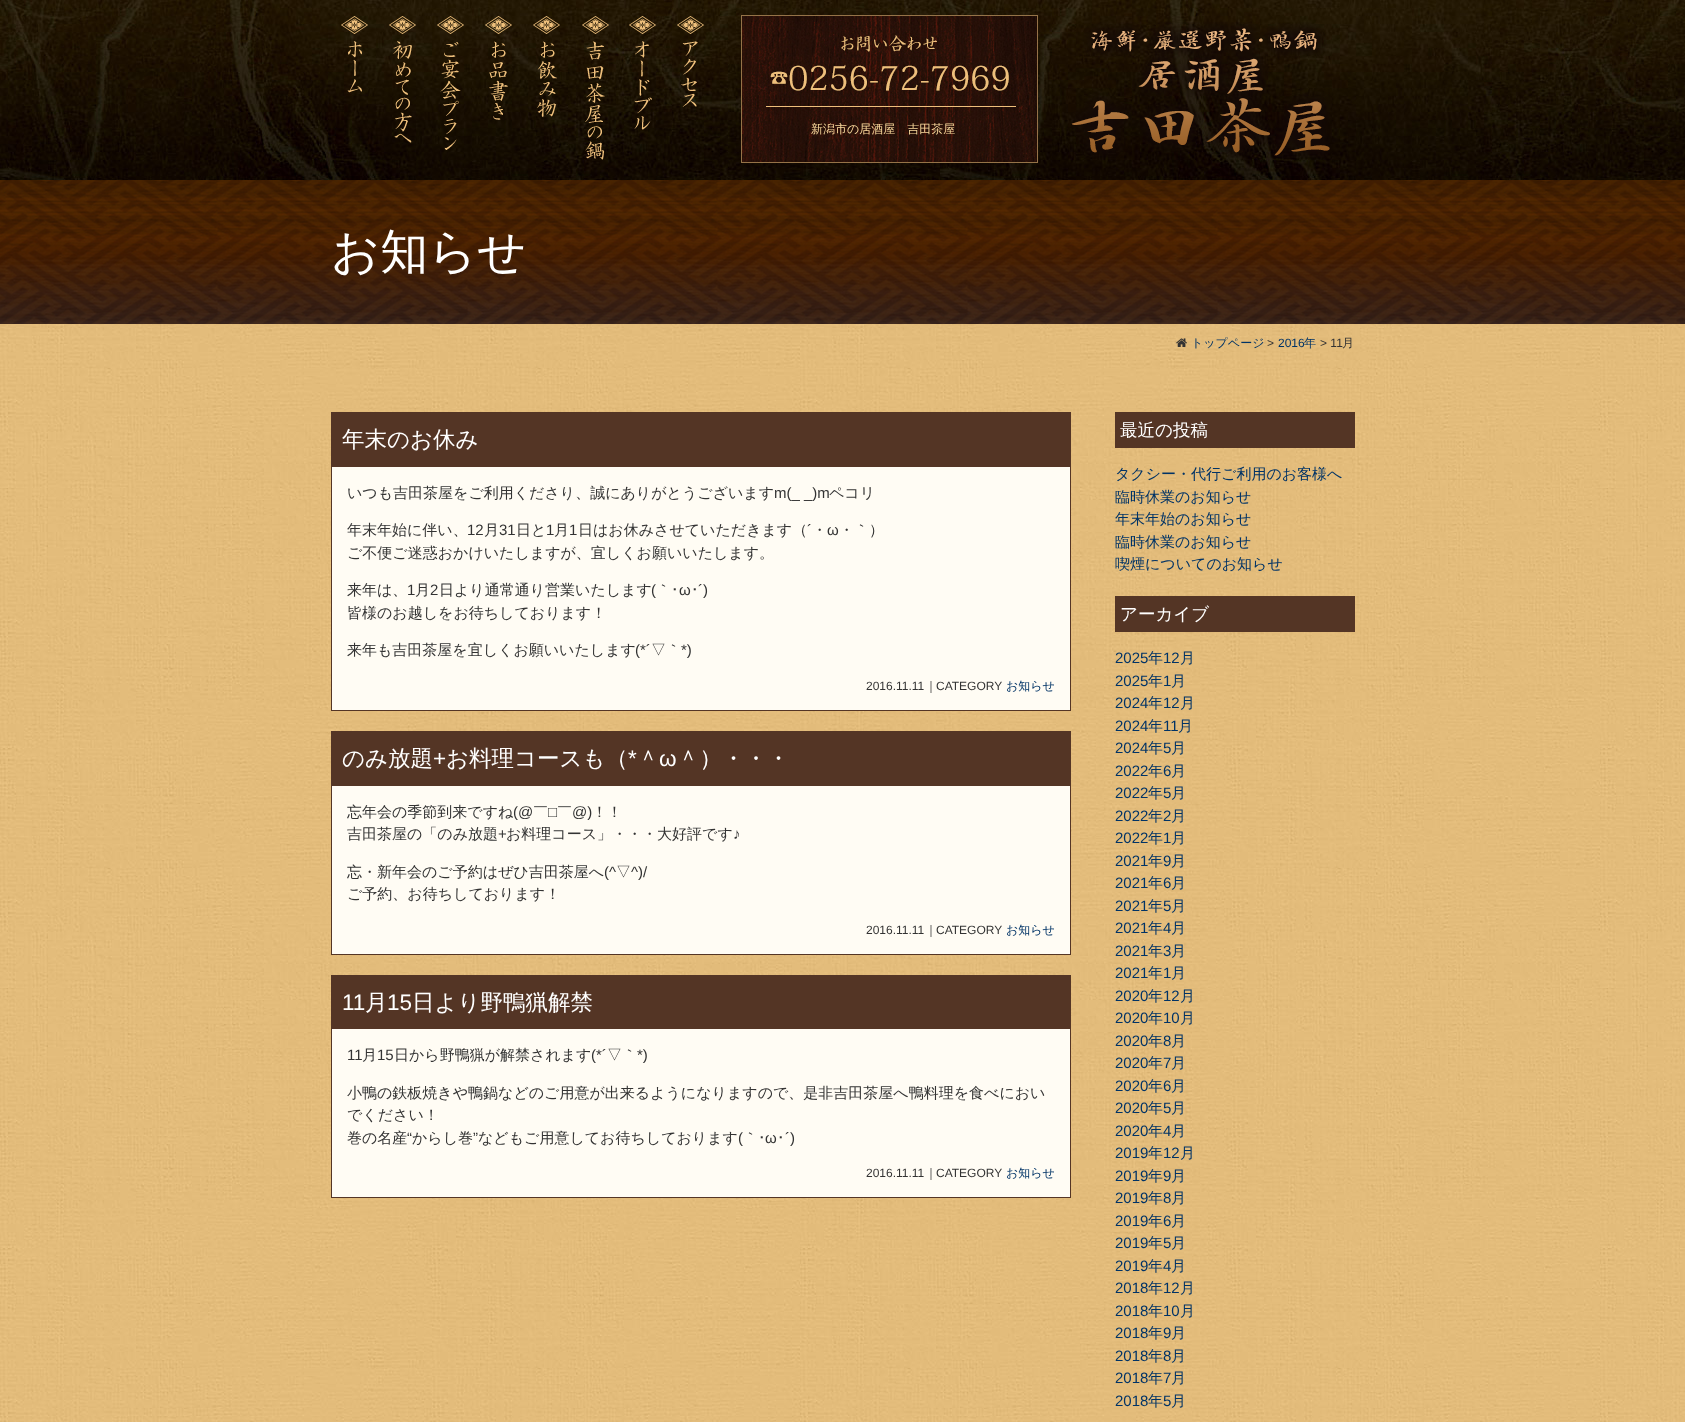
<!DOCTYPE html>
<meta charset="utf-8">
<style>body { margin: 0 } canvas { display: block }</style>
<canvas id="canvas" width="1685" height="1422"></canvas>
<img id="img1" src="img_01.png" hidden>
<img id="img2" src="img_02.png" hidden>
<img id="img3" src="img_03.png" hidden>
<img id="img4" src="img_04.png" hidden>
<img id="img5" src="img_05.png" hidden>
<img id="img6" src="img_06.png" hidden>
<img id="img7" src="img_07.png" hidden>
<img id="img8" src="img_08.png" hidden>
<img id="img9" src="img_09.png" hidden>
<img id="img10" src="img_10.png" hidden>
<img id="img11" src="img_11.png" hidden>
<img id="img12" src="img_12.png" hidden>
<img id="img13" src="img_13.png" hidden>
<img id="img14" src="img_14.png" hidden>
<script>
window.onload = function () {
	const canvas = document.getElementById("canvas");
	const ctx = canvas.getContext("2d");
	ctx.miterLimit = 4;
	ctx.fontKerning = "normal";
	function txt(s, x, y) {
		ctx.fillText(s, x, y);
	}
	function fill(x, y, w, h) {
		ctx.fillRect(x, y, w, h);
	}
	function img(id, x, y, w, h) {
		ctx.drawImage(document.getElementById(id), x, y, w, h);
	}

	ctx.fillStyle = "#FFFFFF";
	fill(0, 0, 1685, 1422);
	img("img1", 0, 324, 1685, 1098);
	img("img2", 0, 0, 1685, 180);
	img("img3", 341, 16, 27, 77);
	img("img4", 389, 16, 27, 127);
	img("img5", 437, 16, 27, 134);
	img("img6", 485, 16, 27, 104);
	img("img7", 533, 16, 27, 101);
	img("img8", 582, 16, 27, 144);
	img("img9", 629, 16, 27, 114);
	img("img10", 677, 16, 27, 91);
	img("img11", 741, 15, 297, 148);
	img("img12", 1071, 22, 259, 136);
	img("img13", 0, 180, 1685, 144);
	img("img14", 1176, 338, 11, 9);
	ctx.fillStyle = "#FFFCF4";
	fill(332, 467, 738, 243);
	ctx.strokeStyle = "#543525";
	ctx.strokeRect(331.5, 412.5, 739, 298);
	ctx.fillStyle = "#543525";
	fill(332, 413, 738, 54);
	ctx.fillStyle = "#FFFCF4";
	fill(332, 786, 738, 168);
	ctx.strokeRect(331.5, 731.5, 739, 223);
	ctx.fillStyle = "#543525";
	fill(332, 732, 738, 54);
	ctx.fillStyle = "#FFFCF4";
	fill(332, 1029, 738, 168);
	ctx.strokeRect(331.5, 975.5, 739, 222);
	ctx.fillStyle = "#543525";
	fill(332, 976, 738, 53);
	fill(1115, 412, 240, 36);
	fill(1115, 596, 240, 36);
	ctx.font = "500 12px WenQuanYi Zen Hei";
	ctx.fillStyle = "#FBDA9D";
	txt("新潟市の居酒屋　吉田茶屋", 811, 133);
	ctx.font = "500 48px WenQuanYi Zen Hei";
	ctx.fillStyle = "#FFFFFF";
	txt("お知らせ", 331, 268);
	ctx.font = "500 12px WenQuanYi Zen Hei";
	ctx.fillStyle = "#003366";
	txt("トップページ", 1191, 347);
	ctx.font = "12px Liberation Sans";
	ctx.fillStyle = "#333333";
	txt(">", 1267, 347);
	ctx.fillStyle = "#003366";
	txt("2016", 1278, 347);
	ctx.font = "500 12px WenQuanYi Zen Hei";
	txt("年", 1304, 347);
	ctx.font = "12px Liberation Sans";
	ctx.fillStyle = "#333333";
	txt("> 11", 1320, 347);
	ctx.font = "500 12px WenQuanYi Zen Hei";
	txt("月", 1342, 347);
	ctx.font = "500 22.5px WenQuanYi Zen Hei";
	ctx.fillStyle = "#FFFFFF";
	txt("年末のお休み", 342, 447);
	ctx.font = "500 15px WenQuanYi Zen Hei";
	ctx.fillStyle = "#333333";
	txt("いつも吉田茶屋をご利用くださり、誠にありがとうございます", 347, 498);
	ctx.font = "15px Liberation Sans";
	txt("m(_ _)m", 774, 498);
	ctx.font = "500 15px WenQuanYi Zen Hei";
	txt("ペコリ", 829, 498);
	txt("年末年始に伴い、", 347, 535);
	ctx.font = "15px Liberation Sans";
	txt("12", 467, 535);
	ctx.font = "500 15px WenQuanYi Zen Hei";
	txt("月", 484, 535);
	ctx.font = "15px Liberation Sans";
	txt("31", 499, 535);
	ctx.font = "500 15px WenQuanYi Zen Hei";
	txt("日と", 516, 535);
	ctx.font = "15px Liberation Sans";
	txt("1", 546, 535);
	ctx.font = "500 15px WenQuanYi Zen Hei";
	txt("月", 554, 535);
	ctx.font = "15px Liberation Sans";
	txt("1", 569, 535);
	ctx.font = "500 15px WenQuanYi Zen Hei";
	txt("日はお休みさせていただきます（", 578, 535);
	ctx.font = "15px Liberation Sans";
	txt("´", 807, 535);
	ctx.font = "500 15px WenQuanYi Zen Hei";
	txt("・", 812, 535);
	ctx.font = "15px Liberation Sans";
	txt("ω", 827, 535);
	ctx.font = "500 15px WenQuanYi Zen Hei";
	txt("・｀）", 839, 535);
	txt("ご不便ご迷惑おかけいたしますが、宜しくお願いいたします。", 347, 558);
	txt("来年は、", 347, 595);
	ctx.font = "15px Liberation Sans";
	txt("1", 407, 595);
	ctx.font = "500 15px WenQuanYi Zen Hei";
	txt("月", 415, 595);
	ctx.font = "15px Liberation Sans";
	txt("2", 430, 595);
	ctx.font = "500 15px WenQuanYi Zen Hei";
	txt("日より通常通り営業いたします", 439, 595);
	ctx.font = "15px Liberation Sans";
	txt("(", 651, 595);
	ctx.font = "500 15px WenQuanYi Zen Hei";
	txt("｀", 656, 595);
	ctx.font = "15px Liberation Sans";
	txt("´)", 698, 595);
	ctx.font = "15px IPAPGothic";
	txt("･", 671, 595);
	ctx.font = "15px Liberation Sans";
	txt("ω", 679, 595);
	ctx.font = "15px IPAPGothic";
	txt("･", 691, 595);
	ctx.font = "500 15px WenQuanYi Zen Hei";
	txt("皆様のお越しをお待ちしております！", 347, 618);
	txt("来年も吉田茶屋を宜しくお願いいたします", 347, 655);
	ctx.font = "15px Liberation Sans";
	txt("(*´", 635, 655);
	ctx.font = "500 15px WenQuanYi Zen Hei";
	txt("▽｀", 651, 655);
	ctx.font = "15px Liberation Sans";
	txt("*)", 681, 655);
	ctx.font = "12px Liberation Sans";
	txt("2016.11.11", 866, 690);
	ctx.font = "500 12px WenQuanYi Zen Hei";
	txt("｜", 925, 690);
	ctx.font = "12px Liberation Sans";
	txt("CATEGORY", 936, 690);
	ctx.font = "500 12px WenQuanYi Zen Hei";
	ctx.fillStyle = "#003366";
	txt("お知らせ", 1006, 690);
	ctx.font = "500 22.5px WenQuanYi Zen Hei";
	ctx.fillStyle = "#FFFFFF";
	txt("のみ放題", 342, 766);
	ctx.font = "22.5px Liberation Sans";
	txt("+", 433, 766);
	ctx.font = "500 22.5px WenQuanYi Zen Hei";
	txt("お料理コースも（", 446, 766);
	ctx.font = "22.5px Liberation Sans";
	txt("*", 628, 766);
	ctx.font = "500 22.5px WenQuanYi Zen Hei";
	txt("＾", 637, 766);
	ctx.font = "22.5px Liberation Sans";
	txt("ω", 659, 766);
	ctx.font = "500 22.5px WenQuanYi Zen Hei";
	txt("＾）・・・", 677, 766);
	ctx.font = "500 15px WenQuanYi Zen Hei";
	ctx.fillStyle = "#333333";
	txt("忘年会の季節到来ですね", 347, 817);
	ctx.font = "15px Liberation Sans";
	txt("(@", 513, 817);
	ctx.font = "500 15px WenQuanYi Zen Hei";
	txt("￣", 533, 817);
	ctx.font = "15px Liberation Sans";
	txt("□", 548, 817);
	ctx.font = "500 15px WenQuanYi Zen Hei";
	txt("￣", 557, 817);
	ctx.font = "15px Liberation Sans";
	txt("@)", 572, 817);
	ctx.font = "500 15px WenQuanYi Zen Hei";
	txt("！！", 592, 817);
	txt("吉田茶屋の「のみ放題", 347, 839);
	ctx.font = "15px Liberation Sans";
	txt("+", 498, 839);
	ctx.font = "500 15px WenQuanYi Zen Hei";
	txt("お料理コース」・・・大好評です", 506, 839);
	ctx.font = "15px Liberation Sans";
	txt("♪", 733, 839);
	ctx.font = "500 15px WenQuanYi Zen Hei";
	txt("忘・新年会のご予約はぜひ吉田茶屋へ", 347, 877);
	ctx.font = "15px Liberation Sans";
	txt("(^", 604, 877);
	ctx.font = "500 15px WenQuanYi Zen Hei";
	txt("▽", 616, 877);
	ctx.font = "15px Liberation Sans";
	txt("^)/", 631, 877);
	ctx.font = "500 15px WenQuanYi Zen Hei";
	txt("ご予約、お待ちしております！", 347, 899);
	ctx.font = "12px Liberation Sans";
	txt("2016.11.11", 866, 934);
	ctx.font = "500 12px WenQuanYi Zen Hei";
	txt("｜", 925, 934);
	ctx.font = "12px Liberation Sans";
	txt("CATEGORY", 936, 934);
	ctx.font = "500 12px WenQuanYi Zen Hei";
	ctx.fillStyle = "#003366";
	txt("お知らせ", 1006, 934);
	ctx.font = "22.5px Liberation Sans";
	ctx.fillStyle = "#FFFFFF";
	txt("11", 342, 1010);
	ctx.font = "500 22.5px WenQuanYi Zen Hei";
	txt("月", 365, 1010);
	ctx.font = "22.5px Liberation Sans";
	txt("15", 387, 1010);
	ctx.font = "500 22.5px WenQuanYi Zen Hei";
	txt("日より野鴨猟解禁", 412, 1010);
	ctx.font = "15px Liberation Sans";
	ctx.fillStyle = "#333333";
	txt("11", 347, 1060);
	ctx.font = "500 15px WenQuanYi Zen Hei";
	txt("月", 362, 1060);
	ctx.font = "15px Liberation Sans";
	txt("15", 377, 1060);
	ctx.font = "500 15px WenQuanYi Zen Hei";
	txt("日から野鴨猟が解禁されます", 394, 1060);
	ctx.font = "15px Liberation Sans";
	txt("(*´", 591, 1060);
	ctx.font = "500 15px WenQuanYi Zen Hei";
	txt("▽｀", 607, 1060);
	ctx.font = "15px Liberation Sans";
	txt("*)", 637, 1060);
	ctx.font = "500 15px WenQuanYi Zen Hei";
	txt("小鴨の鉄板焼きや鴨鍋などのご用意が出来るようになりますので、是非吉田茶屋へ鴨料理を食べにおい", 347, 1098);
	txt("でください！", 347, 1120);
	txt("巻の名産", 347, 1143);
	ctx.font = "15px Liberation Sans";
	txt("“", 407, 1143);
	ctx.font = "500 15px WenQuanYi Zen Hei";
	txt("からし巻", 412, 1143);
	ctx.font = "15px Liberation Sans";
	txt("”", 473, 1143);
	ctx.font = "500 15px WenQuanYi Zen Hei";
	txt("などもご用意してお待ちしております", 478, 1143);
	ctx.font = "15px Liberation Sans";
	txt("(", 738, 1143);
	ctx.font = "500 15px WenQuanYi Zen Hei";
	txt("｀", 743, 1143);
	ctx.font = "15px Liberation Sans";
	txt("´)", 785, 1143);
	ctx.font = "15px IPAPGothic";
	txt("･", 758, 1143);
	ctx.font = "15px Liberation Sans";
	txt("ω", 765, 1143);
	ctx.font = "15px IPAPGothic";
	txt("･", 777, 1143);
	ctx.font = "12px Liberation Sans";
	txt("2016.11.11", 866, 1177);
	ctx.font = "500 12px WenQuanYi Zen Hei";
	txt("｜", 925, 1177);
	ctx.font = "12px Liberation Sans";
	txt("CATEGORY", 936, 1177);
	ctx.font = "500 12px WenQuanYi Zen Hei";
	ctx.fillStyle = "#003366";
	txt("お知らせ", 1006, 1177);
	ctx.font = "500 17.5px WenQuanYi Zen Hei";
	ctx.fillStyle = "#FFFFFF";
	txt("最近の投稿", 1120, 436);
	ctx.font = "500 15px WenQuanYi Zen Hei";
	ctx.fillStyle = "#003366";
	txt("タクシー・代行ご利用のお客様へ", 1115, 479);
	txt("臨時休業のお知らせ", 1115, 502);
	txt("年末年始のお知らせ", 1115, 524);
	txt("臨時休業のお知らせ", 1115, 547);
	txt("喫煙についてのお知らせ", 1115, 569);
	ctx.font = "500 17.5px WenQuanYi Zen Hei";
	ctx.fillStyle = "#FFFFFF";
	txt("アーカイブ", 1120, 620);
	ctx.font = "15px Liberation Sans";
	ctx.fillStyle = "#003366";
	txt("2025", 1115, 663);
	ctx.font = "500 15px WenQuanYi Zen Hei";
	txt("年", 1148, 663);
	ctx.font = "15px Liberation Sans";
	txt("12", 1163, 663);
	ctx.font = "500 15px WenQuanYi Zen Hei";
	txt("月", 1180, 663);
	ctx.font = "15px Liberation Sans";
	txt("2025", 1115, 686);
	ctx.font = "500 15px WenQuanYi Zen Hei";
	txt("年", 1148, 686);
	ctx.font = "15px Liberation Sans";
	txt("1", 1163, 686);
	ctx.font = "500 15px WenQuanYi Zen Hei";
	txt("月", 1171, 686);
	ctx.font = "15px Liberation Sans";
	txt("2024", 1115, 708);
	ctx.font = "500 15px WenQuanYi Zen Hei";
	txt("年", 1148, 708);
	ctx.font = "15px Liberation Sans";
	txt("12", 1163, 708);
	ctx.font = "500 15px WenQuanYi Zen Hei";
	txt("月", 1180, 708);
	ctx.font = "15px Liberation Sans";
	txt("2024", 1115, 731);
	ctx.font = "500 15px WenQuanYi Zen Hei";
	txt("年", 1148, 731);
	ctx.font = "15px Liberation Sans";
	txt("11", 1163, 731);
	ctx.font = "500 15px WenQuanYi Zen Hei";
	txt("月", 1178, 731);
	ctx.font = "15px Liberation Sans";
	txt("2024", 1115, 753);
	ctx.font = "500 15px WenQuanYi Zen Hei";
	txt("年", 1148, 753);
	ctx.font = "15px Liberation Sans";
	txt("5", 1163, 753);
	ctx.font = "500 15px WenQuanYi Zen Hei";
	txt("月", 1171, 753);
	ctx.font = "15px Liberation Sans";
	txt("2022", 1115, 776);
	ctx.font = "500 15px WenQuanYi Zen Hei";
	txt("年", 1148, 776);
	ctx.font = "15px Liberation Sans";
	txt("6", 1163, 776);
	ctx.font = "500 15px WenQuanYi Zen Hei";
	txt("月", 1171, 776);
	ctx.font = "15px Liberation Sans";
	txt("2022", 1115, 798);
	ctx.font = "500 15px WenQuanYi Zen Hei";
	txt("年", 1148, 798);
	ctx.font = "15px Liberation Sans";
	txt("5", 1163, 798);
	ctx.font = "500 15px WenQuanYi Zen Hei";
	txt("月", 1171, 798);
	ctx.font = "15px Liberation Sans";
	txt("2022", 1115, 821);
	ctx.font = "500 15px WenQuanYi Zen Hei";
	txt("年", 1148, 821);
	ctx.font = "15px Liberation Sans";
	txt("2", 1163, 821);
	ctx.font = "500 15px WenQuanYi Zen Hei";
	txt("月", 1171, 821);
	ctx.font = "15px Liberation Sans";
	txt("2022", 1115, 843);
	ctx.font = "500 15px WenQuanYi Zen Hei";
	txt("年", 1148, 843);
	ctx.font = "15px Liberation Sans";
	txt("1", 1163, 843);
	ctx.font = "500 15px WenQuanYi Zen Hei";
	txt("月", 1171, 843);
	ctx.font = "15px Liberation Sans";
	txt("2021", 1115, 866);
	ctx.font = "500 15px WenQuanYi Zen Hei";
	txt("年", 1148, 866);
	ctx.font = "15px Liberation Sans";
	txt("9", 1163, 866);
	ctx.font = "500 15px WenQuanYi Zen Hei";
	txt("月", 1171, 866);
	ctx.font = "15px Liberation Sans";
	txt("2021", 1115, 888);
	ctx.font = "500 15px WenQuanYi Zen Hei";
	txt("年", 1148, 888);
	ctx.font = "15px Liberation Sans";
	txt("6", 1163, 888);
	ctx.font = "500 15px WenQuanYi Zen Hei";
	txt("月", 1171, 888);
	ctx.font = "15px Liberation Sans";
	txt("2021", 1115, 911);
	ctx.font = "500 15px WenQuanYi Zen Hei";
	txt("年", 1148, 911);
	ctx.font = "15px Liberation Sans";
	txt("5", 1163, 911);
	ctx.font = "500 15px WenQuanYi Zen Hei";
	txt("月", 1171, 911);
	ctx.font = "15px Liberation Sans";
	txt("2021", 1115, 933);
	ctx.font = "500 15px WenQuanYi Zen Hei";
	txt("年", 1148, 933);
	ctx.font = "15px Liberation Sans";
	txt("4", 1163, 933);
	ctx.font = "500 15px WenQuanYi Zen Hei";
	txt("月", 1171, 933);
	ctx.font = "15px Liberation Sans";
	txt("2021", 1115, 956);
	ctx.font = "500 15px WenQuanYi Zen Hei";
	txt("年", 1148, 956);
	ctx.font = "15px Liberation Sans";
	txt("3", 1163, 956);
	ctx.font = "500 15px WenQuanYi Zen Hei";
	txt("月", 1171, 956);
	ctx.font = "15px Liberation Sans";
	txt("2021", 1115, 978);
	ctx.font = "500 15px WenQuanYi Zen Hei";
	txt("年", 1148, 978);
	ctx.font = "15px Liberation Sans";
	txt("1", 1163, 978);
	ctx.font = "500 15px WenQuanYi Zen Hei";
	txt("月", 1171, 978);
	ctx.font = "15px Liberation Sans";
	txt("2020", 1115, 1001);
	ctx.font = "500 15px WenQuanYi Zen Hei";
	txt("年", 1148, 1001);
	ctx.font = "15px Liberation Sans";
	txt("12", 1163, 1001);
	ctx.font = "500 15px WenQuanYi Zen Hei";
	txt("月", 1180, 1001);
	ctx.font = "15px Liberation Sans";
	txt("2020", 1115, 1023);
	ctx.font = "500 15px WenQuanYi Zen Hei";
	txt("年", 1148, 1023);
	ctx.font = "15px Liberation Sans";
	txt("10", 1163, 1023);
	ctx.font = "500 15px WenQuanYi Zen Hei";
	txt("月", 1180, 1023);
	ctx.font = "15px Liberation Sans";
	txt("2020", 1115, 1046);
	ctx.font = "500 15px WenQuanYi Zen Hei";
	txt("年", 1148, 1046);
	ctx.font = "15px Liberation Sans";
	txt("8", 1163, 1046);
	ctx.font = "500 15px WenQuanYi Zen Hei";
	txt("月", 1171, 1046);
	ctx.font = "15px Liberation Sans";
	txt("2020", 1115, 1068);
	ctx.font = "500 15px WenQuanYi Zen Hei";
	txt("年", 1148, 1068);
	ctx.font = "15px Liberation Sans";
	txt("7", 1163, 1068);
	ctx.font = "500 15px WenQuanYi Zen Hei";
	txt("月", 1171, 1068);
	ctx.font = "15px Liberation Sans";
	txt("2020", 1115, 1091);
	ctx.font = "500 15px WenQuanYi Zen Hei";
	txt("年", 1148, 1091);
	ctx.font = "15px Liberation Sans";
	txt("6", 1163, 1091);
	ctx.font = "500 15px WenQuanYi Zen Hei";
	txt("月", 1171, 1091);
	ctx.font = "15px Liberation Sans";
	txt("2020", 1115, 1113);
	ctx.font = "500 15px WenQuanYi Zen Hei";
	txt("年", 1148, 1113);
	ctx.font = "15px Liberation Sans";
	txt("5", 1163, 1113);
	ctx.font = "500 15px WenQuanYi Zen Hei";
	txt("月", 1171, 1113);
	ctx.font = "15px Liberation Sans";
	txt("2020", 1115, 1136);
	ctx.font = "500 15px WenQuanYi Zen Hei";
	txt("年", 1148, 1136);
	ctx.font = "15px Liberation Sans";
	txt("4", 1163, 1136);
	ctx.font = "500 15px WenQuanYi Zen Hei";
	txt("月", 1171, 1136);
	ctx.font = "15px Liberation Sans";
	txt("2019", 1115, 1158);
	ctx.font = "500 15px WenQuanYi Zen Hei";
	txt("年", 1148, 1158);
	ctx.font = "15px Liberation Sans";
	txt("12", 1163, 1158);
	ctx.font = "500 15px WenQuanYi Zen Hei";
	txt("月", 1180, 1158);
	ctx.font = "15px Liberation Sans";
	txt("2019", 1115, 1181);
	ctx.font = "500 15px WenQuanYi Zen Hei";
	txt("年", 1148, 1181);
	ctx.font = "15px Liberation Sans";
	txt("9", 1163, 1181);
	ctx.font = "500 15px WenQuanYi Zen Hei";
	txt("月", 1171, 1181);
	ctx.font = "15px Liberation Sans";
	txt("2019", 1115, 1203);
	ctx.font = "500 15px WenQuanYi Zen Hei";
	txt("年", 1148, 1203);
	ctx.font = "15px Liberation Sans";
	txt("8", 1163, 1203);
	ctx.font = "500 15px WenQuanYi Zen Hei";
	txt("月", 1171, 1203);
	ctx.font = "15px Liberation Sans";
	txt("2019", 1115, 1226);
	ctx.font = "500 15px WenQuanYi Zen Hei";
	txt("年", 1148, 1226);
	ctx.font = "15px Liberation Sans";
	txt("6", 1163, 1226);
	ctx.font = "500 15px WenQuanYi Zen Hei";
	txt("月", 1171, 1226);
	ctx.font = "15px Liberation Sans";
	txt("2019", 1115, 1248);
	ctx.font = "500 15px WenQuanYi Zen Hei";
	txt("年", 1148, 1248);
	ctx.font = "15px Liberation Sans";
	txt("5", 1163, 1248);
	ctx.font = "500 15px WenQuanYi Zen Hei";
	txt("月", 1171, 1248);
	ctx.font = "15px Liberation Sans";
	txt("2019", 1115, 1271);
	ctx.font = "500 15px WenQuanYi Zen Hei";
	txt("年", 1148, 1271);
	ctx.font = "15px Liberation Sans";
	txt("4", 1163, 1271);
	ctx.font = "500 15px WenQuanYi Zen Hei";
	txt("月", 1171, 1271);
	ctx.font = "15px Liberation Sans";
	txt("2018", 1115, 1293);
	ctx.font = "500 15px WenQuanYi Zen Hei";
	txt("年", 1148, 1293);
	ctx.font = "15px Liberation Sans";
	txt("12", 1163, 1293);
	ctx.font = "500 15px WenQuanYi Zen Hei";
	txt("月", 1180, 1293);
	ctx.font = "15px Liberation Sans";
	txt("2018", 1115, 1316);
	ctx.font = "500 15px WenQuanYi Zen Hei";
	txt("年", 1148, 1316);
	ctx.font = "15px Liberation Sans";
	txt("10", 1163, 1316);
	ctx.font = "500 15px WenQuanYi Zen Hei";
	txt("月", 1180, 1316);
	ctx.font = "15px Liberation Sans";
	txt("2018", 1115, 1338);
	ctx.font = "500 15px WenQuanYi Zen Hei";
	txt("年", 1148, 1338);
	ctx.font = "15px Liberation Sans";
	txt("9", 1163, 1338);
	ctx.font = "500 15px WenQuanYi Zen Hei";
	txt("月", 1171, 1338);
	ctx.font = "15px Liberation Sans";
	txt("2018", 1115, 1361);
	ctx.font = "500 15px WenQuanYi Zen Hei";
	txt("年", 1148, 1361);
	ctx.font = "15px Liberation Sans";
	txt("8", 1163, 1361);
	ctx.font = "500 15px WenQuanYi Zen Hei";
	txt("月", 1171, 1361);
	ctx.font = "15px Liberation Sans";
	txt("2018", 1115, 1383);
	ctx.font = "500 15px WenQuanYi Zen Hei";
	txt("年", 1148, 1383);
	ctx.font = "15px Liberation Sans";
	txt("7", 1163, 1383);
	ctx.font = "500 15px WenQuanYi Zen Hei";
	txt("月", 1171, 1383);
	ctx.font = "15px Liberation Sans";
	txt("2018", 1115, 1406);
	ctx.font = "500 15px WenQuanYi Zen Hei";
	txt("年", 1148, 1406);
	ctx.font = "15px Liberation Sans";
	txt("5", 1163, 1406);
	ctx.font = "500 15px WenQuanYi Zen Hei";
	txt("月", 1171, 1406);
};
</script>
